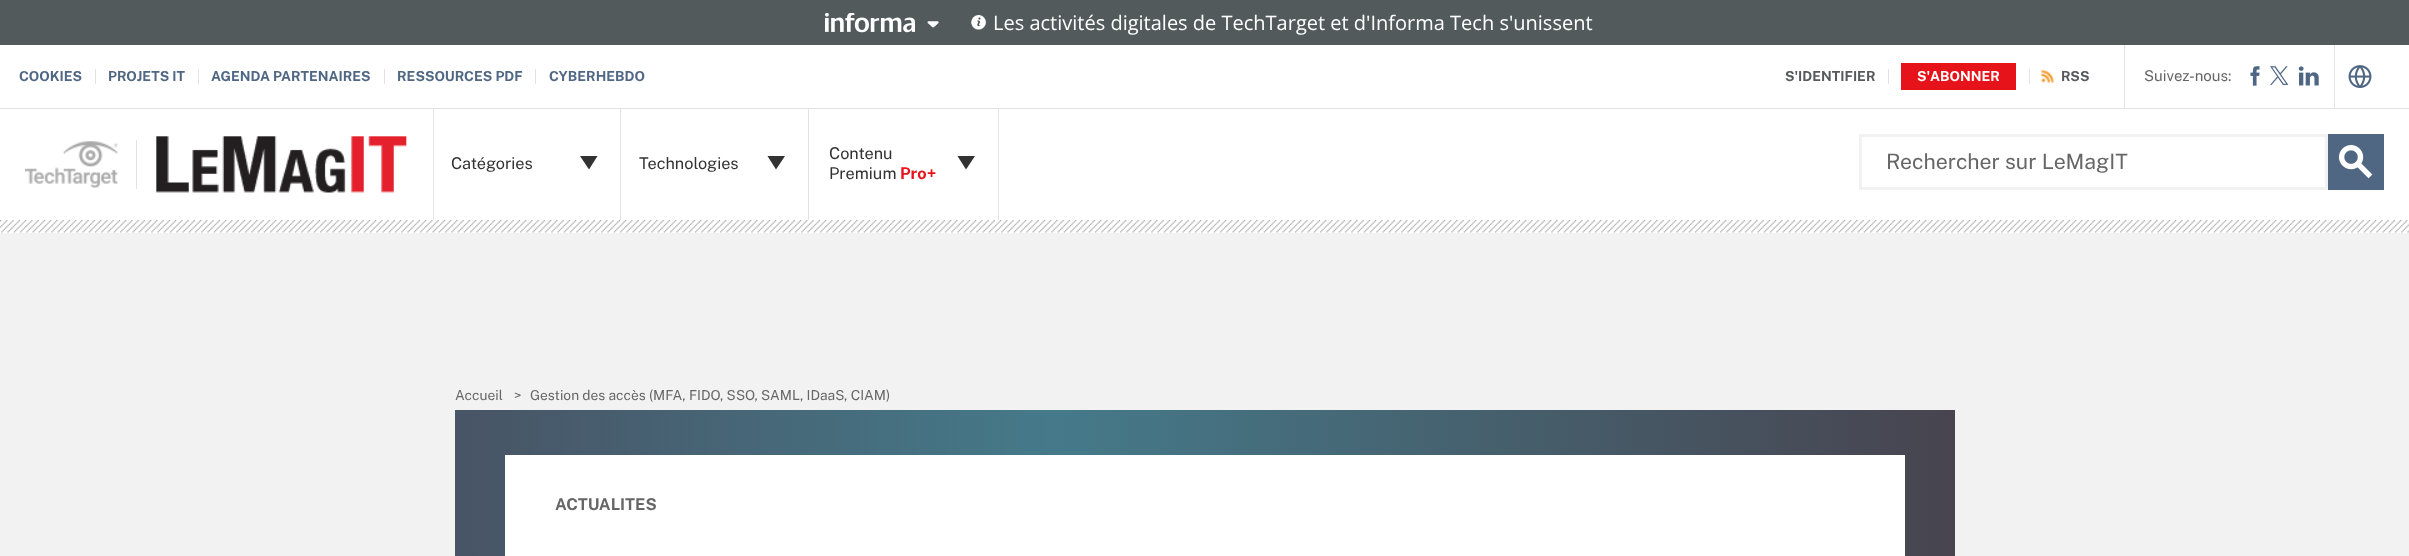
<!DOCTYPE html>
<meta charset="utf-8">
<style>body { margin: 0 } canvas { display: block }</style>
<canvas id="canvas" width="2409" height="556"></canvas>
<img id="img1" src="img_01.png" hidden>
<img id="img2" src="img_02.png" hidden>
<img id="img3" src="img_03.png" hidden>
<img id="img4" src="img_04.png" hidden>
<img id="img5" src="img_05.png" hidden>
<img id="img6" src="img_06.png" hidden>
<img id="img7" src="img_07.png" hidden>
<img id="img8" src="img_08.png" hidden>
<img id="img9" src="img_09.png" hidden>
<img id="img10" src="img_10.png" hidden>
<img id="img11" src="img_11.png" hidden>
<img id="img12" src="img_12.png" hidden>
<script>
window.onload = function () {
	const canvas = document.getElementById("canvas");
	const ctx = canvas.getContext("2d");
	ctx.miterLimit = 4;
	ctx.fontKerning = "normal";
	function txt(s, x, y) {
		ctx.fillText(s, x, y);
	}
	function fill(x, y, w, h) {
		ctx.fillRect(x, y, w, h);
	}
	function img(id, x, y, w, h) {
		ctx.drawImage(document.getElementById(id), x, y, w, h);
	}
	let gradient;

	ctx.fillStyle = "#F2F2F2";
	fill(0, 0, 2409, 556);
	ctx.fillStyle = "#525A5C";
	fill(0, 0, 2409, 45);
	img("img1", 825, 13, 90, 20);
	img("img2", 927, 21, 12, 7);
	img("img3", 971, 15, 16, 15);
	ctx.fillStyle = "#FFFFFF";
	fill(0, 45, 2409, 188);
	img("img4", 0, 220, 2409, 13);
	ctx.fillStyle = "#E3E3E3";
	fill(95, 69, 1, 15);
	fill(198, 69, 1, 15);
	fill(384, 69, 1, 15);
	fill(535, 69, 1, 15);
	fill(1888, 69, 1, 15);
	ctx.fillStyle = "#E7131A";
	fill(1901, 63, 115, 27);
	img("img5", 2041, 69, 13, 14);
	ctx.fillStyle = "#E3E3E3";
	fill(2029, 69, 1, 15);
	fill(2124, 45, 1, 63);
	img("img6", 2250, 66, 10, 20);
	img("img7", 2270, 66, 19, 19);
	img("img8", 2298, 66, 21, 20);
	fill(434, 108, 1975, 1);
	fill(2334, 45, 1, 64);
	img("img9", 2348, 65, 24, 23);
	fill(620, 109, 1, 111);
	ctx.fillStyle = "#323232";
	ctx.beginPath();
	ctx.moveTo(597.5, 156);
	ctx.lineTo(589, 169.5);
	ctx.lineTo(580, 156);
	ctx.closePath();
	ctx.fill();
	ctx.fillStyle = "#E3E3E3";
	fill(808, 109, 1, 111);
	ctx.fillStyle = "#323232";
	ctx.beginPath();
	ctx.moveTo(785, 156);
	ctx.lineTo(776, 169.5);
	ctx.lineTo(767.5, 156);
	ctx.closePath();
	ctx.fill();
	ctx.fillStyle = "#E3E3E3";
	fill(998, 109, 1, 111);
	ctx.fillStyle = "#323232";
	ctx.beginPath();
	ctx.moveTo(975, 156);
	ctx.lineTo(966, 169.5);
	ctx.lineTo(957.5, 156);
	ctx.closePath();
	ctx.fill();
	ctx.fillStyle = "#E3E3E3";
	fill(0, 108, 434, 1);
	img("img10", 25, 141, 93, 47);
	fill(136, 140, 1, 49);
	img("img11", 156, 136, 251, 57);
	fill(433, 108, 1, 112);
	ctx.strokeStyle = "#F2F2F2";
	ctx.lineWidth = 3;
	ctx.strokeRect(1860.5, 135.5, 466, 53);
	ctx.fillStyle = "#506784";
	fill(2328, 134, 56, 56);
	img("img12", 2338, 145, 35, 34);
	gradient = ctx.createLinearGradient(455, 510, 1955, 510);
	gradient.addColorStop(0, "#485566");
	gradient.addColorStop(0.01, "#485566");
	gradient.addColorStop(0.4, "#457A8A");
	gradient.addColorStop(1, "#47444F");
	ctx.fillStyle = gradient;
	fill(455, 410, 1500, 146);
	ctx.fillStyle = "#FFFFFF";
	fill(505, 455, 1400, 101);
	ctx.font = "20px Open Sans";
	txt("Les activités digitales de TechTarget et d'Informa Tech s'unissent", 993, 30);
	ctx.font = "bold 13.75px Public Sans";
	ctx.fillStyle = "#506784";
	txt("COOKIES", 19, 81);
	txt("PROJETS IT", 108, 81);
	txt("AGENDA PARTENAIRES", 211, 81);
	txt("RESSOURCES PDF", 397, 81);
	txt("CYBERHEBDO", 549, 81);
	ctx.fillStyle = "#58595B";
	txt("S'IDENTIFIER", 1785, 81);
	ctx.fillStyle = "#FFFFFF";
	txt("S'ABONNER", 1917, 81);
	ctx.fillStyle = "#58595B";
	txt("RSS", 2061, 81);
	ctx.font = "15px Public Sans";
	ctx.fillStyle = "#666666";
	txt("Suivez-nous:", 2144, 81);
	ctx.font = "16.25px Public Sans";
	ctx.fillStyle = "#323232";
	txt("Catégories", 451, 169);
	txt("Technologies", 639, 169);
	txt("Contenu", 829, 159);
	txt("Premium", 829, 179);
	ctx.font = "bold 16.25px Public Sans";
	ctx.fillStyle = "#E7131A";
	txt("Pro+", 900, 179);
	ctx.font = "21.25px Public Sans";
	ctx.fillStyle = "#666666";
	txt("Rechercher sur LeMagIT", 1886, 169);
	ctx.font = "13.75px Public Sans";
	txt("Accueil", 455, 400);
	txt(">", 514, 400);
	txt("Gestion des accès (MFA, FIDO, SSO, SAML, IDaaS, CIAM)", 530, 400);
	ctx.font = "bold 16.25px Public Sans";
	txt("ACTUALITES", 555, 510);
};
</script>
